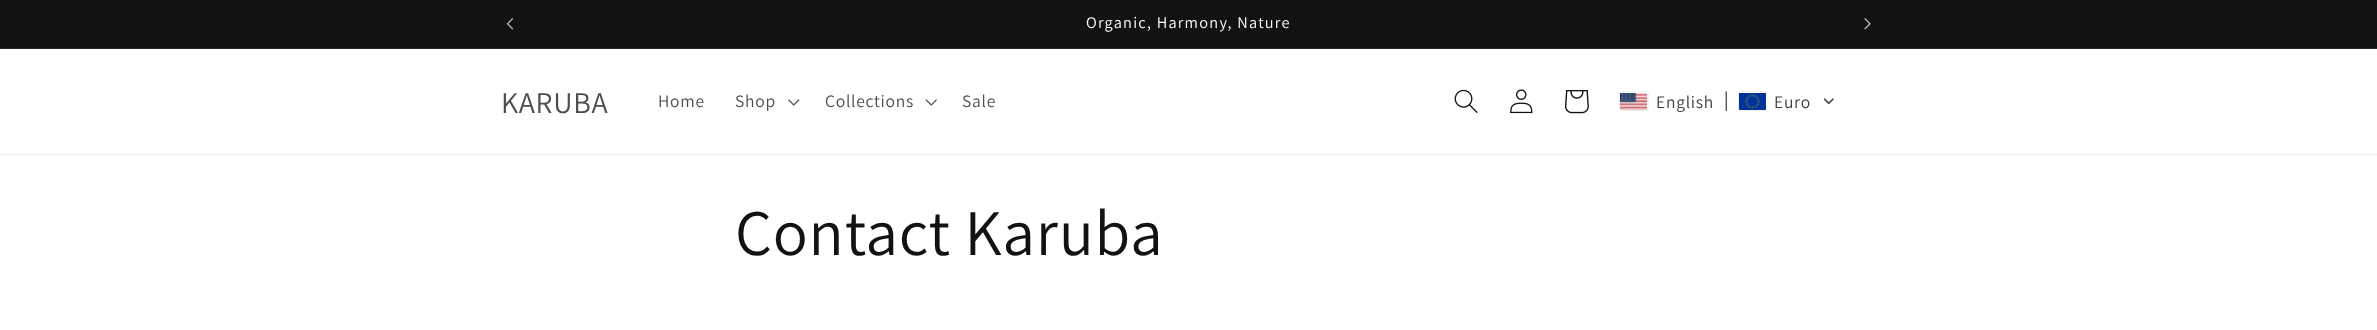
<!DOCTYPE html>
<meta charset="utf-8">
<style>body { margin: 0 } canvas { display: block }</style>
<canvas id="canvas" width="2377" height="330"></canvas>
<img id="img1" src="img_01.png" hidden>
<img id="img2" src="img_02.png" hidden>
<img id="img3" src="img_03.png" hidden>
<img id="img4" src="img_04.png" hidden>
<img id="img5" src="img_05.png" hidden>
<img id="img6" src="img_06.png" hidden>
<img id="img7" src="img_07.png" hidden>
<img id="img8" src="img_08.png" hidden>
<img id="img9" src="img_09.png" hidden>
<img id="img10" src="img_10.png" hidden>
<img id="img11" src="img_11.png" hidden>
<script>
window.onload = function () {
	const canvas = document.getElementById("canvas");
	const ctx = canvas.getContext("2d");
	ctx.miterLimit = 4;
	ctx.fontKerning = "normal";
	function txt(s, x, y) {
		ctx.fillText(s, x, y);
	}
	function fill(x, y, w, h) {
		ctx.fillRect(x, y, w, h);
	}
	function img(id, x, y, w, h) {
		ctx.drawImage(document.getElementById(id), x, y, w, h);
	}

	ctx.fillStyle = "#FFFFFF";
	fill(0, 0, 2377, 330);
	ctx.fillStyle = "#121212";
	fill(0, 0, 2377, 48);
	ctx.fillStyle = "#252525";
	fill(0, 48, 2377, 1);
	img("img1", 507, 18, 6, 12);
	img("img2", 1864, 18, 7, 12);
	ctx.fillStyle = "#ECECEC";
	fill(0, 154, 2377, 1);
	img("img3", 788, 99, 12, 7);
	img("img4", 925, 99, 12, 7);
	img("img5", 1454, 89, 24, 24);
	img("img6", 1510, 89, 23, 25);
	img("img7", 1565, 90, 24, 24);
	ctx.beginPath();
	ctx.roundRect(1619.5, 91.5, 29, 19, 2);
	ctx.strokeStyle = "#F0F1F2";
	ctx.stroke();
	img("img8", 1620, 93, 28, 17);
	img("img9", 1725, 91, 2, 20);
	ctx.beginPath();
	ctx.roundRect(1738.5, 91.5, 29, 19, 2);
	ctx.stroke();
	img("img10", 1739, 93, 27, 17);
	img("img11", 1823, 98, 11, 7);
	ctx.letterSpacing = "1.25px";
	ctx.font = "16.25px Assistant";
	ctx.fillStyle = "#FFFFFF";
	txt("Organic, Harmony, Nature", 1086, 28);
	ctx.letterSpacing = "0.75px";
	ctx.font = "30px Assistant";
	ctx.fillStyle = "#4D4D4D";
	txt("KARUBA", 501, 113);
	ctx.font = "17.5px Assistant";
	txt("Home", 658, 107);
	txt("Shop", 735, 107);
	txt("Collections", 825, 107);
	txt("Sale", 962, 107);
	ctx.fillStyle = "#404040";
	txt("English", 1656, 108);
	txt("Euro", 1774, 108);
	ctx.font = "65px Assistant";
	ctx.fillStyle = "#121212";
	txt("Contact Karuba", 735, 255);
};
</script>
